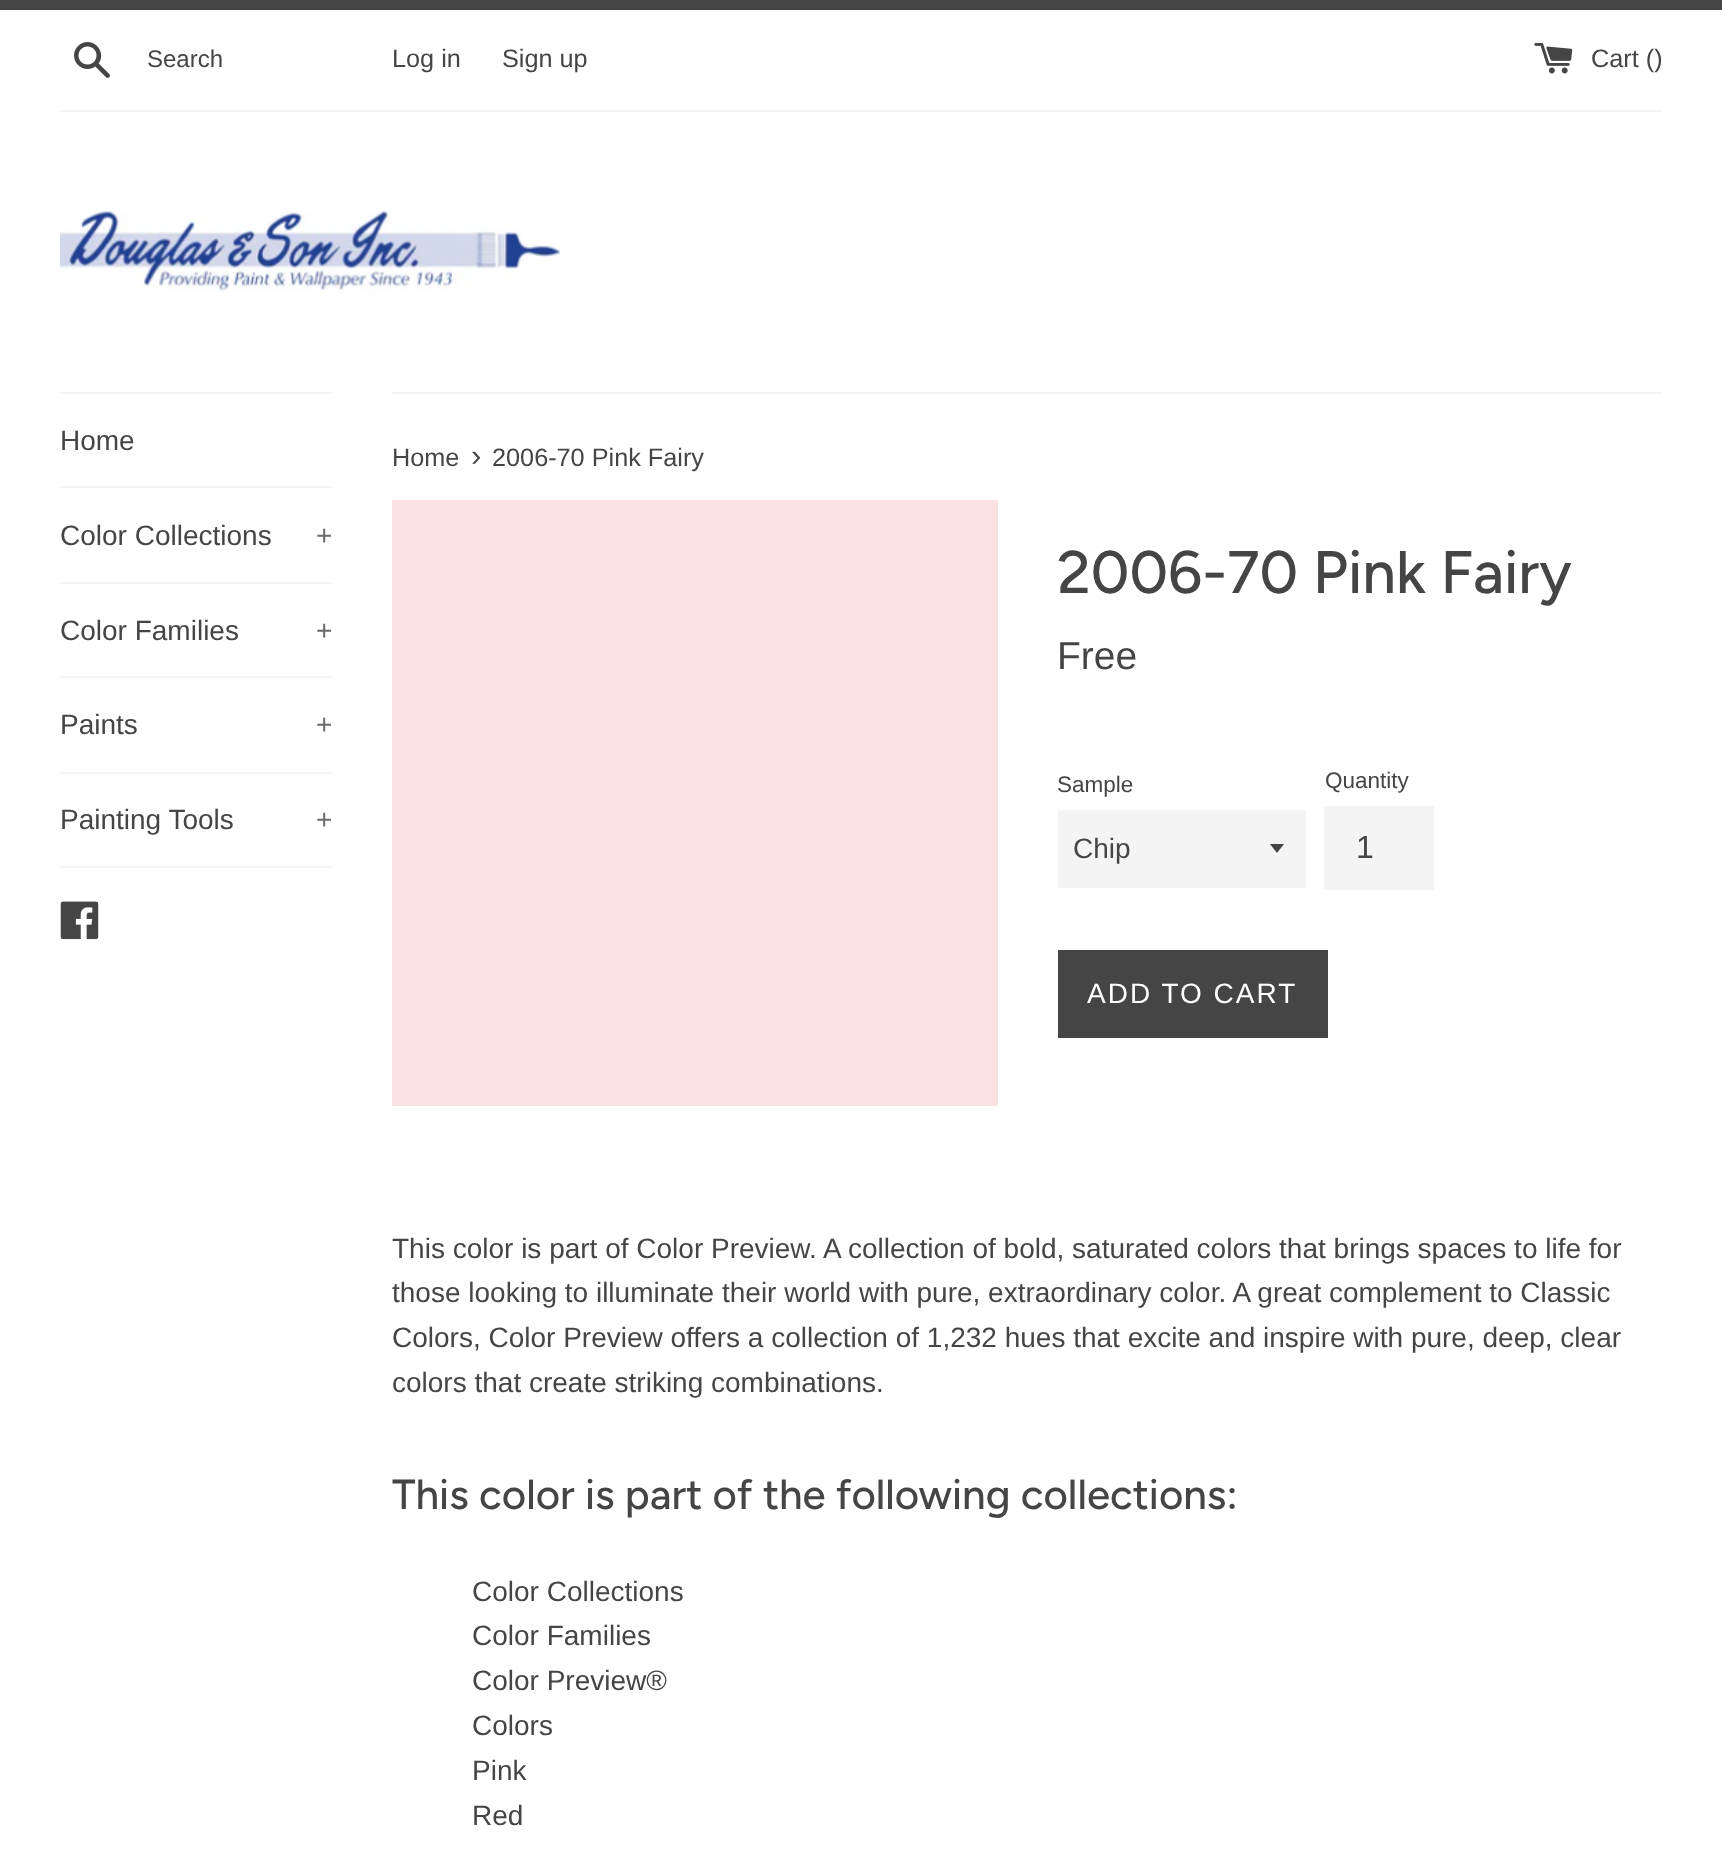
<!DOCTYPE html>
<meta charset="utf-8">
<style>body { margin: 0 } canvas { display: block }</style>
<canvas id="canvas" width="1722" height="1868"></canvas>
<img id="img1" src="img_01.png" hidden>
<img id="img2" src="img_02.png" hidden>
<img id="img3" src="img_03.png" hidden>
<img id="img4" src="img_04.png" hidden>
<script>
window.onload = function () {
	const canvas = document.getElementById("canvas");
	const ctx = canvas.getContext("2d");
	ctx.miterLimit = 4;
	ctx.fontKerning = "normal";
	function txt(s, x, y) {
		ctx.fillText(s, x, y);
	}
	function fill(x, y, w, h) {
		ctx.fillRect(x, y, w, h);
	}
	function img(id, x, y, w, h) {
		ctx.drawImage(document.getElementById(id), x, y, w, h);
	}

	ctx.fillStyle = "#FFFFFF";
	fill(0, 0, 1722, 1868);
	ctx.fillStyle = "#454545";
	fill(0, 0, 1722, 10);
	img("img1", 74, 42, 36, 36);
	img("img2", 1534, 43, 39, 31);
	ctx.fillStyle = "#F4F4F4";
	fill(60, 110, 1602, 2);
	img("img3", 60, 211, 500, 80);
	fill(60, 392, 272, 2);
	fill(60, 486, 272, 2);
	fill(60, 582, 272, 2);
	fill(60, 676, 272, 2);
	fill(60, 772, 272, 2);
	fill(60, 866, 272, 2);
	img("img4", 60, 901, 39, 39);
	fill(392, 392, 1270, 2);
	ctx.fillStyle = "#FBE1E1";
	fill(392, 500, 606, 606);
	ctx.fillStyle = "#F4F4F4";
	fill(1058, 810, 248, 78);
	ctx.fillStyle = "#454545";
	ctx.beginPath();
	ctx.moveTo(1270, 844);
	ctx.lineTo(1277, 853);
	ctx.lineTo(1284, 844);
	ctx.closePath();
	ctx.fill();
	ctx.fillStyle = "#F4F4F4";
	fill(1324, 806, 110, 84);
	ctx.fillStyle = "#454545";
	fill(1058, 950, 270, 88);
	ctx.font = "24px Liberation Sans";
	txt("Search", 147, 67);
	ctx.font = "25.25px Liberation Sans";
	txt("Log in", 392, 67);
	txt("Sign up", 502, 67);
	txt("Cart ()", 1591, 67);
	ctx.font = "28px Liberation Sans";
	txt("Home", 60, 450);
	txt("Color Collections", 60, 545);
	ctx.fillStyle = "#6A6A6A";
	txt("+", 316, 545);
	ctx.fillStyle = "#454545";
	txt("Color Families", 60, 640);
	ctx.fillStyle = "#6A6A6A";
	txt("+", 316, 640);
	ctx.fillStyle = "#454545";
	txt("Paints", 60, 734);
	ctx.fillStyle = "#6A6A6A";
	txt("+", 316, 734);
	ctx.fillStyle = "#454545";
	txt("Painting Tools", 60, 829);
	ctx.fillStyle = "#6A6A6A";
	txt("+", 316, 829);
	ctx.font = "25.25px Liberation Sans";
	ctx.fillStyle = "#454545";
	txt("Home", 392, 466);
	ctx.font = "31px Liberation Sans";
	txt("›", 471, 466);
	ctx.font = "25.25px Liberation Sans";
	txt("2006-70 Pink Fairy", 492, 466);
	ctx.font = "500 60px Figtree";
	txt("2006-70 Pink Fairy", 1057, 593);
	ctx.font = "39px Liberation Sans";
	txt("Free", 1057, 669);
	ctx.font = "22.5px Liberation Sans";
	txt("Sample", 1057, 792);
	ctx.font = "28px Liberation Sans";
	txt("Chip", 1073, 858);
	ctx.font = "22.5px Liberation Sans";
	txt("Quantity", 1325, 788);
	ctx.font = "32px Liberation Sans";
	txt("1", 1356, 858);
	ctx.letterSpacing = "2px";
	ctx.font = "28px Liberation Sans";
	ctx.fillStyle = "#FFFFFF";
	txt("ADD TO CART", 1087, 1003);
	ctx.letterSpacing = "0px";
	ctx.fillStyle = "#454545";
	txt("This color is part of Color Preview. A collection of bold, saturated colors that brings spaces to life for", 392, 1258);
	txt("those looking to illuminate their world with pure, extraordinary color. A great complement to Classic", 392, 1302);
	txt("Colors, Color Preview offers a collection of 1,232 hues that excite and inspire with pure, deep, clear", 392, 1347);
	txt("colors that create striking combinations.", 392, 1392);
	ctx.font = "500 42px Figtree";
	txt("This color is part of the following collections:", 392, 1509);
	ctx.font = "28px Liberation Sans";
	txt("Color Collections", 472, 1601);
	txt("Color Families", 472, 1645);
	txt("Color Preview®", 472, 1690);
	txt("Colors", 472, 1735);
	txt("Pink", 472, 1780);
	txt("Red", 472, 1825);
};
</script>
